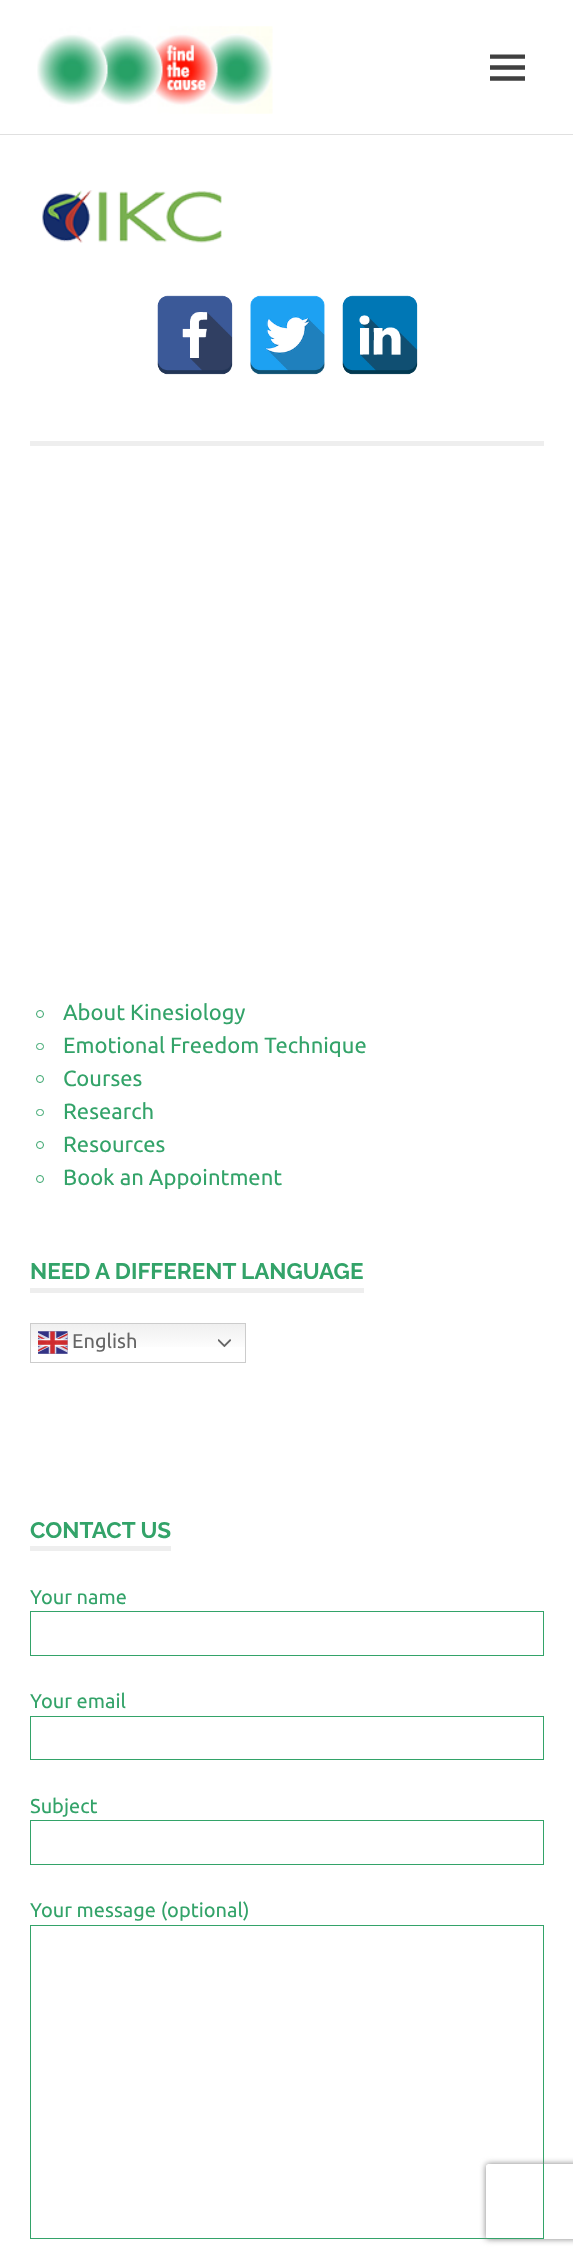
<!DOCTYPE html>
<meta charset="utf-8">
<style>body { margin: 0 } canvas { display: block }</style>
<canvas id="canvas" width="573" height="2256"></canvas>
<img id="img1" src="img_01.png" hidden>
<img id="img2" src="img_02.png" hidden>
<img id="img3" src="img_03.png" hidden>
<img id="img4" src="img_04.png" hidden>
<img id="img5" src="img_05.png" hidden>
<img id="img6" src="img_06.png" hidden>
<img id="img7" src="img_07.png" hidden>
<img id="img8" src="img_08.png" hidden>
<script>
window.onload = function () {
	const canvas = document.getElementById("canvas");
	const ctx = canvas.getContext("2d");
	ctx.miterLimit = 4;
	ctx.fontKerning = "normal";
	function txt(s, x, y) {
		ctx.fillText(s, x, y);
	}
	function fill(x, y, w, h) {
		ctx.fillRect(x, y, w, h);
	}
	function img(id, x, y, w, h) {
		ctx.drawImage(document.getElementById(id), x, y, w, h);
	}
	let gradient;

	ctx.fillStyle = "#FFFFFF";
	fill(0, 0, 573, 2256);
	ctx.fillStyle = "#E0E0E0";
	fill(0, 134, 573, 1);
	img("img1", 37, 26, 236, 88);
	img("img2", 490, 54, 35, 27);
	img("img3", 42, 190, 180, 53);
	img("img4", 157, 295, 76, 80);
	img("img5", 250, 295, 75, 80);
	img("img6", 342, 295, 76, 80);
	ctx.fillStyle = "#EEEEEE";
	fill(30, 441, 514, 5);
	ctx.beginPath();
	ctx.arc(40, 1014, 3.5, 0, Math.PI * 2);
	ctx.strokeStyle = "#33A369";
	ctx.stroke();
	ctx.beginPath();
	ctx.roundRect(36.5, 1043.5, 7, 6, 3);
	ctx.stroke();
	ctx.beginPath();
	ctx.arc(40, 1079, 3.5, 0, Math.PI * 2);
	ctx.stroke();
	ctx.beginPath();
	ctx.roundRect(36.5, 1109.5, 7, 6, 3);
	ctx.stroke();
	ctx.beginPath();
	ctx.arc(40, 1145, 3.5, 0, Math.PI * 2);
	ctx.stroke();
	ctx.beginPath();
	ctx.arc(40, 1179, 3.5, 0, Math.PI * 2);
	ctx.stroke();
	fill(30, 1288, 334, 5);
	gradient = ctx.createLinearGradient(138, 1323, 138, 1363);
	gradient.addColorStop(0, "#EFEFEF");
	gradient.addColorStop(0.7, "#FFFFFF");
	ctx.fillStyle = gradient;
	fill(31, 1324, 214, 23);
	ctx.strokeStyle = "#CCCCCC";
	ctx.strokeRect(30.5, 1323.5, 215, 39);
	img("img7", 38, 1331, 30, 23);
	img("img8", 218, 1339, 13, 9);
	ctx.fillStyle = "#EEEEEE";
	fill(30, 1546, 141, 5);
	ctx.strokeStyle = "#33A369";
	ctx.strokeRect(30.5, 1611.5, 513, 44);
	ctx.strokeRect(30.5, 1716.5, 513, 43);
	ctx.strokeRect(30.5, 1820.5, 513, 44);
	ctx.strokeRect(30.5, 1925.5, 513, 313);
	ctx.save();
	ctx.beginPath();
	ctx.moveTo(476, 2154);
	ctx.lineTo(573, 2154);
	ctx.lineTo(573, 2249);
	ctx.lineTo(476, 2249);
	ctx.closePath();
	ctx.moveTo(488.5, 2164);
	ctx.lineTo(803.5, 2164);
	ctx.bezierCurveTo(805, 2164, 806, 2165, 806, 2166.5);
	ctx.lineTo(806, 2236.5);
	ctx.bezierCurveTo(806, 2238, 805, 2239, 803.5, 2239);
	ctx.lineTo(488.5, 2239);
	ctx.bezierCurveTo(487, 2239, 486, 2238, 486, 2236.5);
	ctx.lineTo(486, 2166.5);
	ctx.bezierCurveTo(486, 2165, 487, 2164, 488.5, 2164);
	ctx.closePath();
	ctx.clip("evenodd");
	ctx.fillStyle = "#808080";
	ctx.filter = "blur(3px)";
	ctx.beginPath();
	ctx.roundRect(486, 2164, 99, 75, 2.5);
	ctx.fill();
	ctx.filter = "none";
	ctx.restore();
	ctx.font = "22px Ubuntu";
	ctx.fillStyle = "#33A369";
	txt("About Kinesiology", 63, 1020);
	txt("Emotional Freedom Technique", 63, 1053);
	txt("Courses", 63, 1086);
	txt("Research", 63, 1119);
	txt("Resources", 63, 1152);
	txt("Book an Appointment", 63, 1185);
	ctx.font = "100 22.5px Raleway";
	txt("NEED A DIFFERENT LANGUAGE", 30, 1279);
	ctx.font = "20px Ubuntu";
	ctx.fillStyle = "#666666";
	txt("English", 72, 1348);
	ctx.font = "100 22.5px Raleway";
	ctx.fillStyle = "#33A369";
	txt("CONTACT US", 30, 1538);
	ctx.font = "20px Ubuntu";
	txt("Your name", 30, 1604);
	txt("Your email", 30, 1708);
	txt("Subject", 30, 1813);
	txt("Your message (optional)", 30, 1917);
};
</script>
